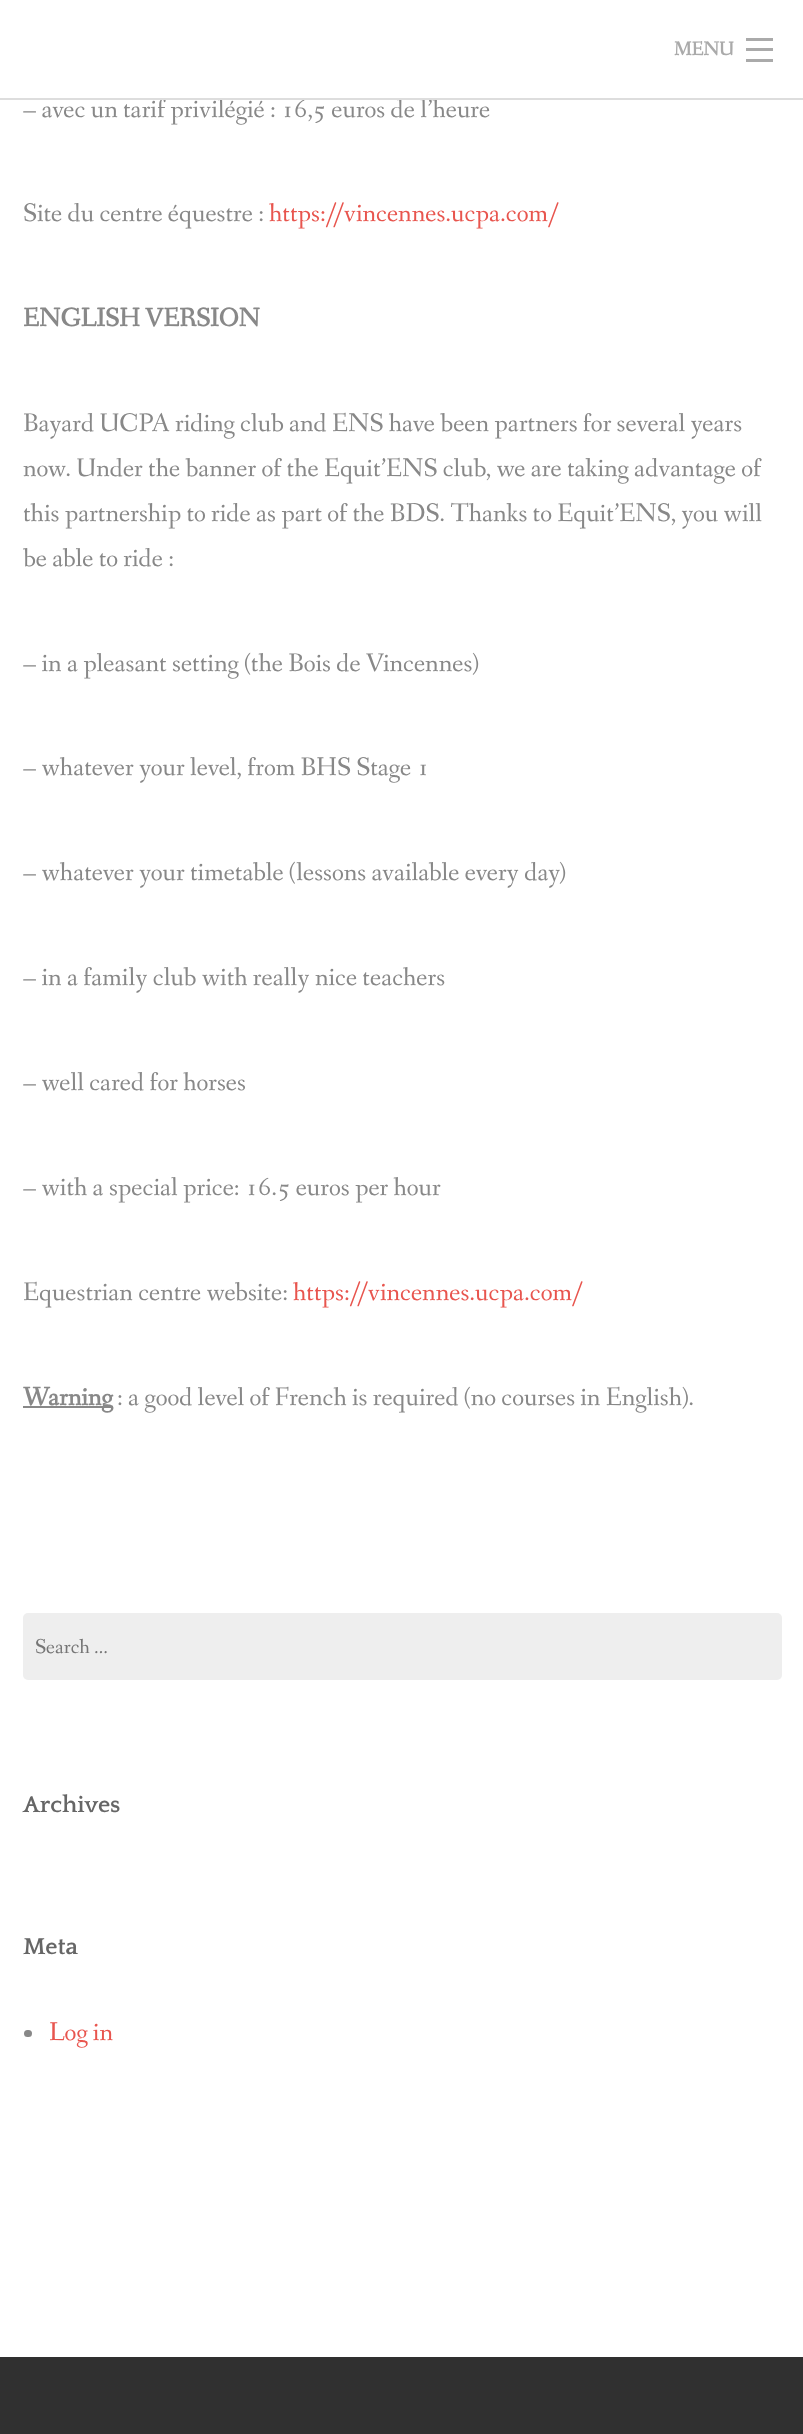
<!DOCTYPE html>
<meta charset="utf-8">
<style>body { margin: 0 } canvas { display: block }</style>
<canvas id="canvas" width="803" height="2434"></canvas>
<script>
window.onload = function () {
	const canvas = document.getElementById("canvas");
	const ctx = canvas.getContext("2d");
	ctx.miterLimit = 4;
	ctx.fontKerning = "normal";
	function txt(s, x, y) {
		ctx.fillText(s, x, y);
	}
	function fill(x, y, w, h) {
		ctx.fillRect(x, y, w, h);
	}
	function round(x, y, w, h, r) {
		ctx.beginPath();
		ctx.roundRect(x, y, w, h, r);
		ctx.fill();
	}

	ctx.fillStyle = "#FFFFFF";
	fill(0, 0, 803, 2434);
	ctx.fillStyle = "#AAAAAA";
	fill(746, 59, 27, 3);
	fill(746, 48, 27, 3);
	fill(746, 38, 27, 3);
	ctx.fillStyle = "#888888";
	fill(23, 1406, 90, 2);
	ctx.fillStyle = "#EEEEEE";
	round(23, 1613, 759, 67, 5);
	ctx.fillStyle = "#888888";
	round(24, 2030, 8, 7, 3.5);
	ctx.fillStyle = "#303030";
	fill(0, 2357, 803, 77);
	ctx.font = "bold 19.5px Fanwood Text";
	ctx.fillStyle = "#AAAAAA";
	txt("MENU", 674, 55);
	ctx.font = "26.4px Fanwood Text";
	ctx.fillStyle = "#888888";
	txt("– avec un tarif privilégié : 16,5 euros de l’heure", 23, 117);
	ctx.fillStyle = "#DDDDDD";
	fill(0, 98, 803, 2);
	ctx.fillStyle = "#888888";
	txt("Site du centre équestre :", 23, 221);
	ctx.fillStyle = "#E8554E";
	txt("https://vincennes.ucpa.com/", 269, 221);
	ctx.font = "bold 26.4px Fanwood Text";
	ctx.fillStyle = "#888888";
	txt("ENGLISH VERSION", 23, 326);
	ctx.font = "26.4px Fanwood Text";
	txt("Bayard UCPA riding club and ENS have been partners for several years", 23, 431);
	txt("now. Under the banner of the Equit’ENS club, we are taking advantage of", 23, 476);
	txt("this partnership to ride as part of the BDS. Thanks to Equit’ENS, you will", 23, 521);
	txt("be able to ride :", 23, 566);
	txt("– in a pleasant setting (the Bois de Vincennes)", 23, 671);
	txt("– whatever your level, from BHS Stage 1", 23, 775);
	txt("– whatever your timetable (lessons available every day)", 23, 880);
	txt("– in a family club with really nice teachers", 23, 985);
	txt("– well cared for horses", 23, 1090);
	txt("– with a special price: 16.5 euros per hour", 23, 1195);
	txt("Equestrian centre website:", 23, 1300);
	ctx.fillStyle = "#E8554E";
	txt("https://vincennes.ucpa.com/", 293, 1300);
	ctx.font = "bold 26.4px Fanwood Text";
	ctx.fillStyle = "#888888";
	txt("Warning", 23, 1405);
	ctx.font = "26.4px Fanwood Text";
	txt(": a good level of French is required (no courses in English).", 117, 1405);
	ctx.font = "21px Fanwood Text";
	ctx.fillStyle = "#757575";
	txt("Search …", 35, 1653);
	ctx.font = "bold 24px Quattrocento";
	ctx.fillStyle = "#666666";
	txt("Archives", 23, 1812);
	txt("Meta", 23, 1954);
	ctx.font = "26.4px Fanwood Text";
	ctx.fillStyle = "#E8554E";
	txt("Log in", 49, 2040);
};
</script>
